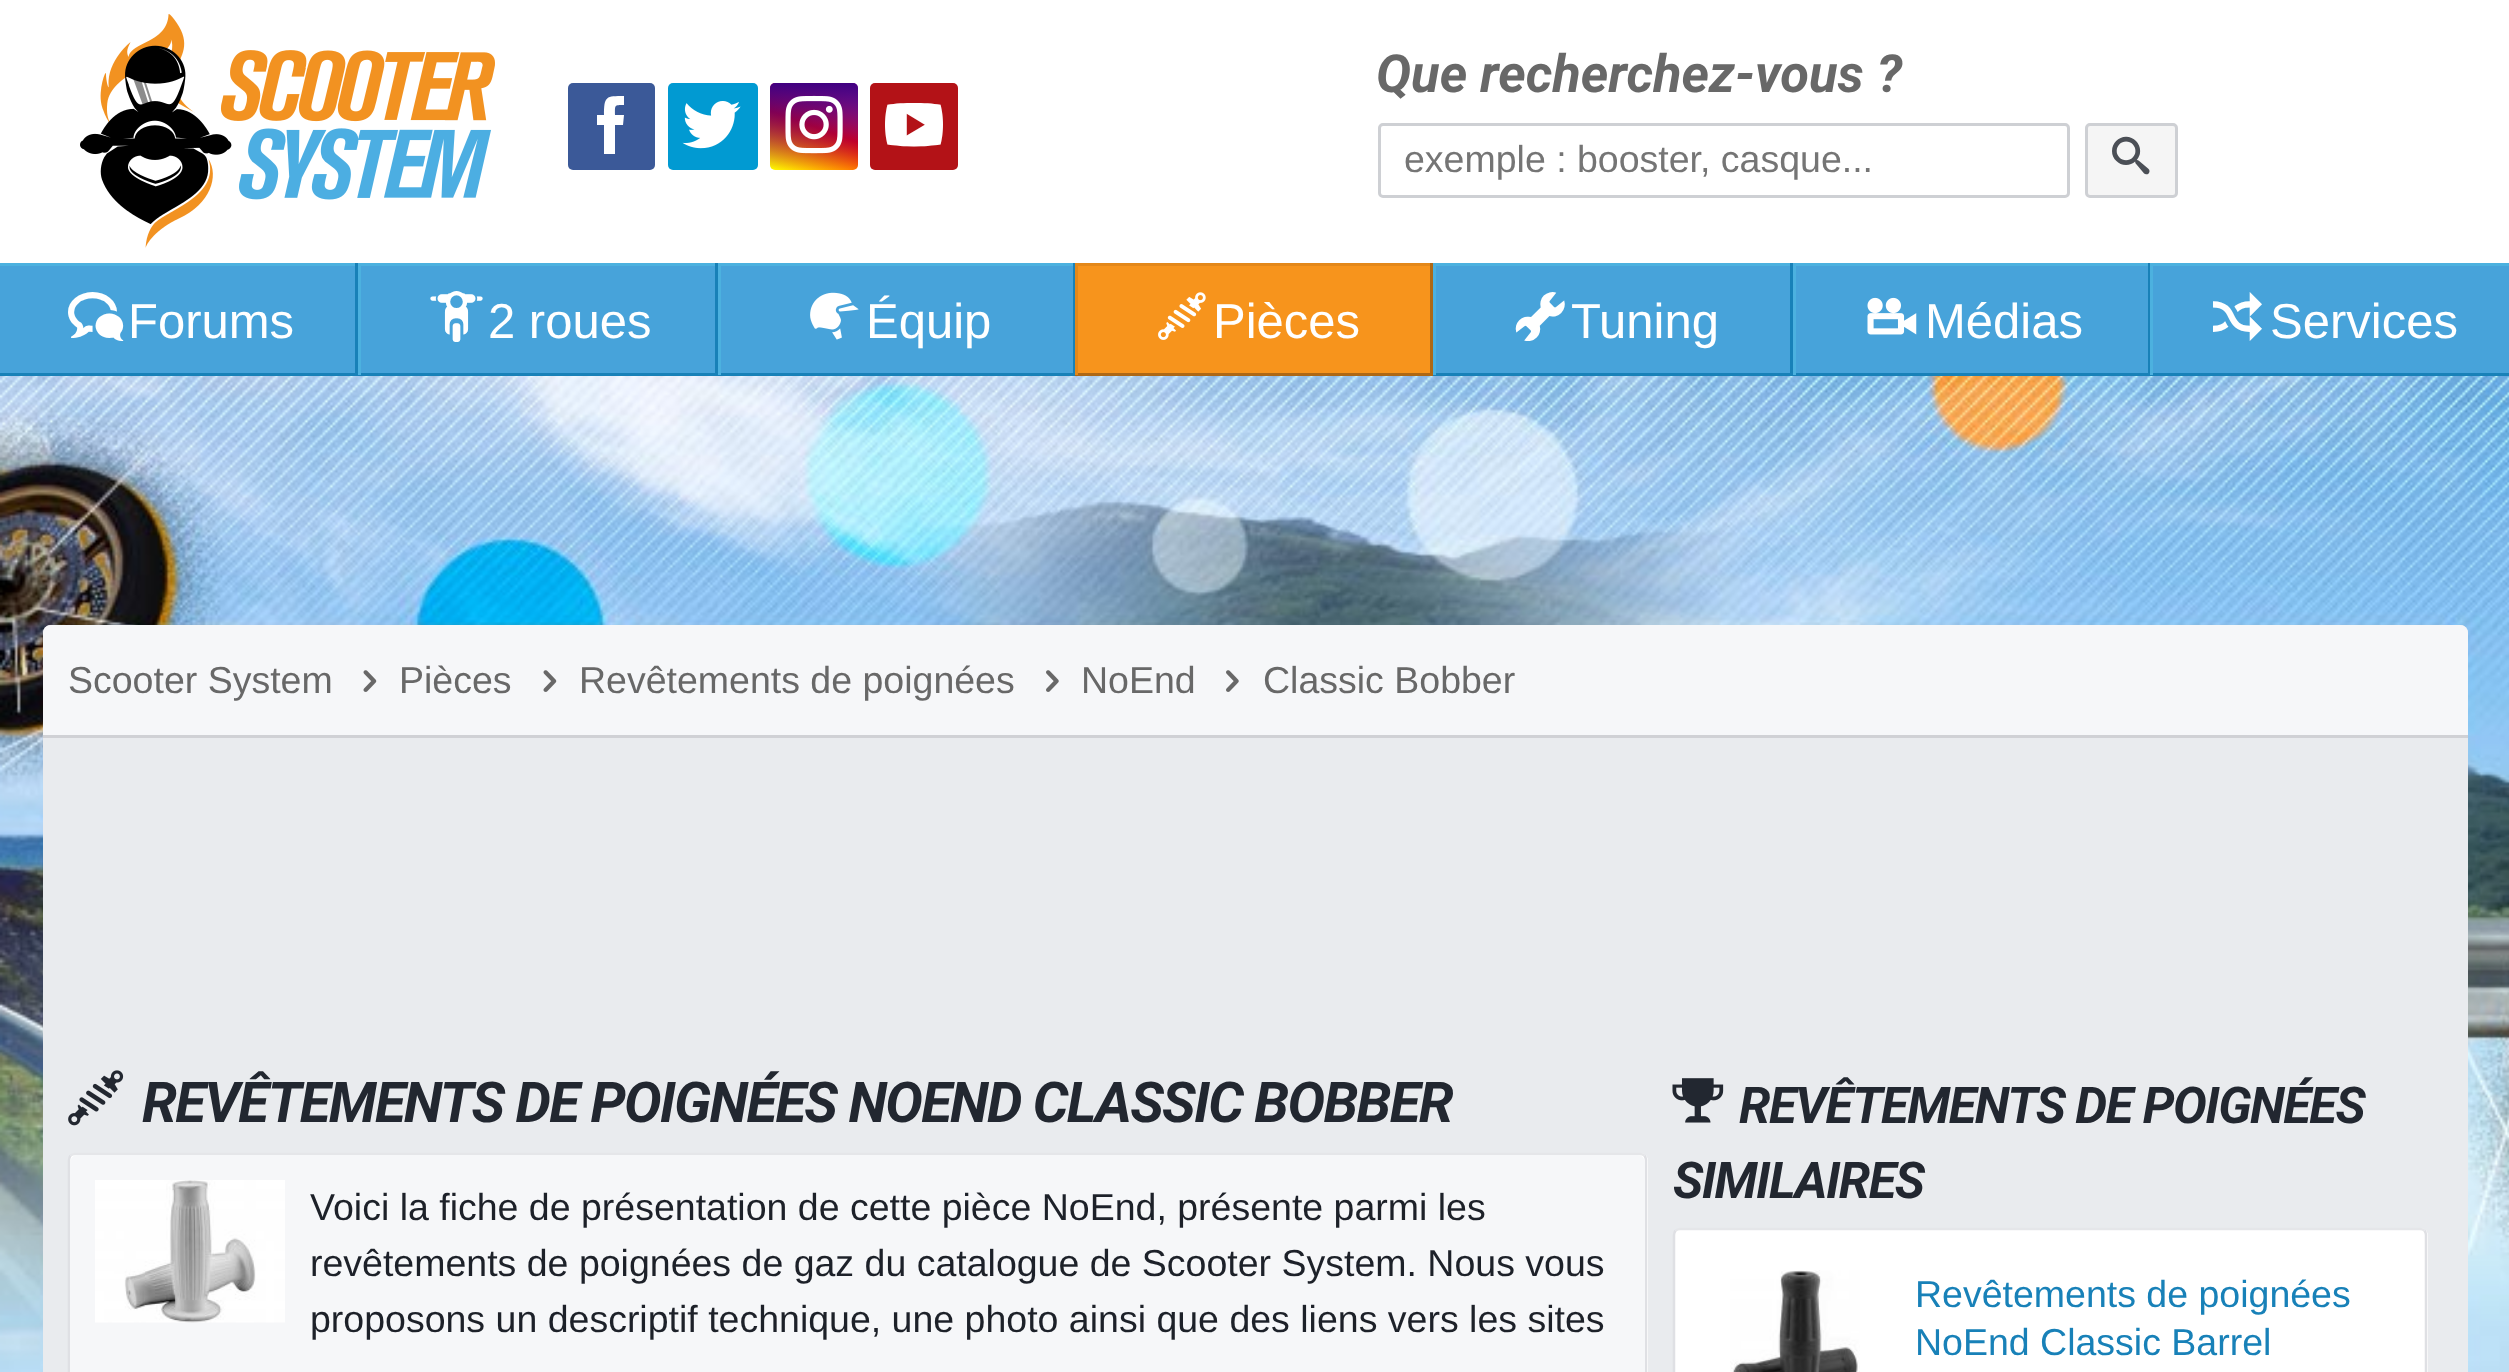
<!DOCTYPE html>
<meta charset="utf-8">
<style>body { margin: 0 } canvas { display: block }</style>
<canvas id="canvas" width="2509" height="1372"></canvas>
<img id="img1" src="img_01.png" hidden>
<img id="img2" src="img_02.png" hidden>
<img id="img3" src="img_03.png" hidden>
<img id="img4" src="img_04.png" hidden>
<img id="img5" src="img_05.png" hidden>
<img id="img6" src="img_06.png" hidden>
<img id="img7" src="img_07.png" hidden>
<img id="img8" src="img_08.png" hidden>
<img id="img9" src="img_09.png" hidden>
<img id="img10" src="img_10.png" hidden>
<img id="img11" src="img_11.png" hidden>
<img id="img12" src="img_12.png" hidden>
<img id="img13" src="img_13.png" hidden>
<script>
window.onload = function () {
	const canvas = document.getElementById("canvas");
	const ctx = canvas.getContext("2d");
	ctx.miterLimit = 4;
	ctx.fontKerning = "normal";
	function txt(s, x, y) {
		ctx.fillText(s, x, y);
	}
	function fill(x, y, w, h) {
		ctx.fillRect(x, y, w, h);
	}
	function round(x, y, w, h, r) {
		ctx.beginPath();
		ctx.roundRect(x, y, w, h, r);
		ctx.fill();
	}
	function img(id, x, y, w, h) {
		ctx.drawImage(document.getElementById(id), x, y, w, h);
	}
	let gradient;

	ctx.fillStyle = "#FFFFFF";
	fill(0, 0, 2509, 1372);
	img("img1", 80, 14, 415, 234);
	ctx.fillStyle = "#3B5998";
	round(568, 83, 87, 87, 5);
	ctx.fillStyle = "#FFFFFF";
	ctx.beginPath();
	ctx.moveTo(597, 125);
	ctx.lineTo(597, 115);
	ctx.lineTo(604, 115);
	ctx.bezierCurveTo(604, 96, 606, 96, 624, 96);
	ctx.lineTo(624, 105);
	ctx.bezierCurveTo(614, 105, 615, 105, 615, 115);
	ctx.lineTo(624, 115);
	ctx.lineTo(623, 125);
	ctx.lineTo(615, 125);
	ctx.lineTo(615, 154);
	ctx.lineTo(604, 154);
	ctx.lineTo(604, 125);
	ctx.closePath();
	ctx.fill();
	ctx.fillStyle = "#019AD2";
	round(668, 83, 90, 87, 5);
	img("img2", 682, 101, 59, 48);
	gradient = ctx.createLinearGradient(833, 74, 795, 179);
	gradient.addColorStop(0, "#D047D1");
	gradient.addColorStop(0.5, "#FF0000");
	gradient.addColorStop(1, "#FFFF00");
	ctx.fillStyle = gradient;
	round(770, 83, 88, 87, 5);
	gradient = ctx.createLinearGradient(814, 83, 814, 170);
	gradient.addColorStop(0, "#400080");
	gradient.addColorStop(1, "rgba(64, 0, 128, 0)");
	ctx.fillStyle = gradient;
	round(770, 83, 88, 87, 5);
	img("img3", 785, 95, 58, 59);
	ctx.fillStyle = "#B31217";
	round(870, 83, 88, 87, 5);
	ctx.beginPath();
	ctx.roundRect(1379.5, 124.5, 689, 72, 3.5);
	ctx.strokeStyle = "#CED0D4";
	ctx.lineWidth = 3;
	ctx.stroke();
	ctx.fillStyle = "#F5F5F5";
	ctx.beginPath();
	ctx.roundRect(2086.5, 124.5, 90, 72, 3.5);
	ctx.fill();
	ctx.stroke();
	ctx.fillStyle = "#47A3DA";
	fill(0, 266, 2509, 107);
	ctx.fillStyle = "#1881B8";
	fill(0, 373, 2509, 3);
	ctx.fillStyle = "#4CB1DF";
	fill(0, 263, 1075, 3);
	ctx.fillStyle = "#1881B8";
	fill(355, 263, 3, 112);
	fill(715, 263, 3, 112);
	ctx.fillStyle = "#4CB1DF";
	fill(358, 263, 3, 112);
	ctx.fillStyle = "#1881B8";
	fill(1073, 263, 2, 112);
	ctx.fillStyle = "#4CB1DF";
	fill(718, 263, 3, 112);
	img("img4", 810, 292, 49, 48);
	ctx.fillStyle = "#F7941C";
	fill(1078, 266, 352, 107);
	ctx.fillStyle = "#E3881A";
	fill(1075, 263, 358, 3);
	ctx.fillStyle = "#AE6814";
	fill(1430, 263, 3, 112);
	fill(1075, 373, 358, 3);
	ctx.fillStyle = "#E3881A";
	fill(1075, 263, 3, 112);
	img("img5", 1158, 292, 48, 48);
	ctx.fillStyle = "#4CB1DF";
	fill(1433, 263, 1076, 3);
	ctx.fillStyle = "#1881B8";
	fill(1790, 263, 3, 112);
	ctx.fillStyle = "#4CB1DF";
	fill(1433, 263, 3, 112);
	ctx.fillStyle = "#1881B8";
	fill(2148, 263, 2, 112);
	ctx.fillStyle = "#4CB1DF";
	fill(1793, 263, 3, 112);
	img("img6", 1867, 297, 50, 38);
	fill(2150, 263, 3, 112);
	img("img7", 0, 376, 2509, 996);
	ctx.fillStyle = "#E9EBEE";
	ctx.beginPath();
	ctx.moveTo(51, 625);
	ctx.lineTo(2460, 625);
	ctx.bezierCurveTo(2464.5, 625, 2468, 628.5, 2468, 633);
	ctx.lineTo(2468, 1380);
	ctx.lineTo(43, 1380);
	ctx.lineTo(43, 633);
	ctx.bezierCurveTo(43, 628.5, 46.5, 625, 51, 625);
	ctx.closePath();
	ctx.fill();
	ctx.fillStyle = "#F6F7F9";
	ctx.beginPath();
	ctx.roundRect(43, 625, 2425, 113, [8, 8, 0, 0]);
	ctx.fill();
	ctx.fillStyle = "#D0D1D5";
	fill(43, 735, 2425, 3);
	img("img8", 363, 670, 14, 22);
	img("img8", 543, 670, 14, 22);
	img("img9", 1046, 670, 13, 22);
	img("img9", 1226, 670, 13, 22);
	img("img10", 68, 1070, 56, 56);
	ctx.fillStyle = "#FFFFFF";
	round(68, 1153, 1580, 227, 8);
	ctx.beginPath();
	ctx.moveTo(70.5, 1155.5);
	ctx.bezierCurveTo(72, 1154.5, 73.5, 1154, 75, 1154);
	ctx.lineTo(1640, 1154);
	ctx.bezierCurveTo(1641.5, 1154, 1643, 1154.5, 1644.5, 1155.5);
	ctx.strokeStyle = "#E5E6E9";
	ctx.lineWidth = 2.5;
	ctx.stroke();
	ctx.beginPath();
	ctx.moveTo(1644.5, 1155.5);
	ctx.bezierCurveTo(1645.5, 1157, 1646, 1158.5, 1646, 1160);
	ctx.lineTo(1646, 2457.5);
	ctx.bezierCurveTo(1646, 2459, 1645.5, 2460.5, 1644.5, 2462);
	ctx.strokeStyle = "#DFE0E4";
	ctx.stroke();
	ctx.beginPath();
	ctx.moveTo(70.5, 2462);
	ctx.bezierCurveTo(69.5, 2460.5, 69, 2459, 69, 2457.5);
	ctx.lineTo(69, 1160);
	ctx.bezierCurveTo(69, 1158.5, 69.5, 1157, 70.5, 1155.5);
	ctx.stroke();
	ctx.fillStyle = "#F6F7F9";
	ctx.beginPath();
	ctx.moveTo(78, 1155);
	ctx.lineTo(1637, 1155);
	ctx.bezierCurveTo(1641.5, 1155, 1645, 1158.5, 1645, 1163);
	ctx.lineTo(1645, 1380);
	ctx.lineTo(70, 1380);
	ctx.lineTo(70, 1163);
	ctx.bezierCurveTo(70, 1158.5, 73.5, 1155, 78, 1155);
	ctx.closePath();
	ctx.fill();
	img("img11", 95, 1180, 190, 143);
	img("img12", 1672, 1078, 52, 45);
	ctx.fillStyle = "#FFFFFF";
	round(1673, 1228, 755, 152, 8);
	ctx.beginPath();
	ctx.moveTo(1675.5, 1230.5);
	ctx.bezierCurveTo(1677, 1229.5, 1678.5, 1229, 1680, 1229);
	ctx.lineTo(2420, 1229);
	ctx.bezierCurveTo(2421.5, 1229, 2423, 1229.5, 2424.5, 1230.5);
	ctx.strokeStyle = "#E5E6E9";
	ctx.stroke();
	ctx.beginPath();
	ctx.moveTo(2424.5, 1230.5);
	ctx.bezierCurveTo(2425.5, 1232, 2426, 1233.5, 2426, 1235);
	ctx.lineTo(2426, 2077.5);
	ctx.bezierCurveTo(2426, 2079, 2425.5, 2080.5, 2424.5, 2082);
	ctx.strokeStyle = "#DFE0E4";
	ctx.stroke();
	ctx.beginPath();
	ctx.moveTo(1675.5, 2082);
	ctx.bezierCurveTo(1674.5, 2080.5, 1674, 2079, 1674, 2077.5);
	ctx.lineTo(1674, 1235);
	ctx.bezierCurveTo(1674, 1233.5, 1674.5, 1232, 1675.5, 1230.5);
	ctx.stroke();
	img("img13", 1730, 1270, 130, 102);
	ctx.font = "58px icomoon";
	txt("!", 885, 150);
	ctx.font = "italic bold 52.5px Roboto";
	ctx.fillStyle = "#686868";
	txt("Que recherchez-vous ?", 1376, 92);
	ctx.font = "37.5px Liberation Sans";
	ctx.fillStyle = "#757575";
	txt("exemple : booster, casque...", 1404, 172);
	ctx.font = "37.5px icomoon";
	ctx.fillStyle = "#4B4F56";
	txt("-", 2112, 172);
	ctx.font = "49px icomoon";
	ctx.fillStyle = "#FFFFFF";
	txt("+", 68, 338);
	ctx.font = "49px Liberation Sans";
	txt("Forums", 128, 338);
	ctx.font = "49px icomoon";
	txt("?", 432, 338);
	ctx.font = "49px Liberation Sans";
	txt("2 roues", 488, 338);
	txt("Équip", 866, 338);
	txt("Pièces", 1213, 338);
	ctx.font = "49px icomoon";
	txt("#", 1515, 338);
	ctx.font = "49px Liberation Sans";
	txt("Tuning", 1571, 338);
	txt("Médias", 1925, 338);
	ctx.font = "49px icomoon";
	txt("\\", 2213, 338);
	ctx.font = "49px Liberation Sans";
	txt("Services", 2270, 338);
	ctx.font = "37.5px Liberation Sans";
	ctx.fillStyle = "#686868";
	txt("Scooter System", 68, 693);
	txt("Pièces", 399, 693);
	txt("Revêtements de poignées", 579, 693);
	txt("NoEnd", 1081, 693);
	txt("Classic Bobber", 1263, 693);
	ctx.letterSpacing = "-1.7px";
	ctx.font = "italic bold 56.25px Roboto";
	ctx.fillStyle = "#222730";
	txt("REVÊTEMENTS DE POIGNÉES NOEND CLASSIC BOBBER", 142, 1122);
	ctx.letterSpacing = "0px";
	ctx.font = "37.5px Liberation Sans";
	ctx.fillStyle = "#1D2129";
	txt("Voici la fiche de présentation de cette pièce NoEnd, présente parmi les", 310, 1220);
	txt("revêtements de poignées de gaz du catalogue de Scooter System. Nous vous", 310, 1276);
	txt("proposons un descriptif technique, une photo ainsi que des liens vers les sites", 310, 1332);
	ctx.letterSpacing = "-1.5px";
	ctx.font = "italic bold 50.6px Roboto";
	ctx.fillStyle = "#222730";
	txt("REVÊTEMENTS DE POIGNÉES", 1739, 1123);
	txt("SIMILAIRES", 1673, 1198);
	ctx.letterSpacing = "0px";
	ctx.font = "37.5px Liberation Sans";
	ctx.fillStyle = "#1881B8";
	txt("Revêtements de poignées", 1915, 1307);
	txt("NoEnd Classic Barrel", 1915, 1355);
};
</script>
